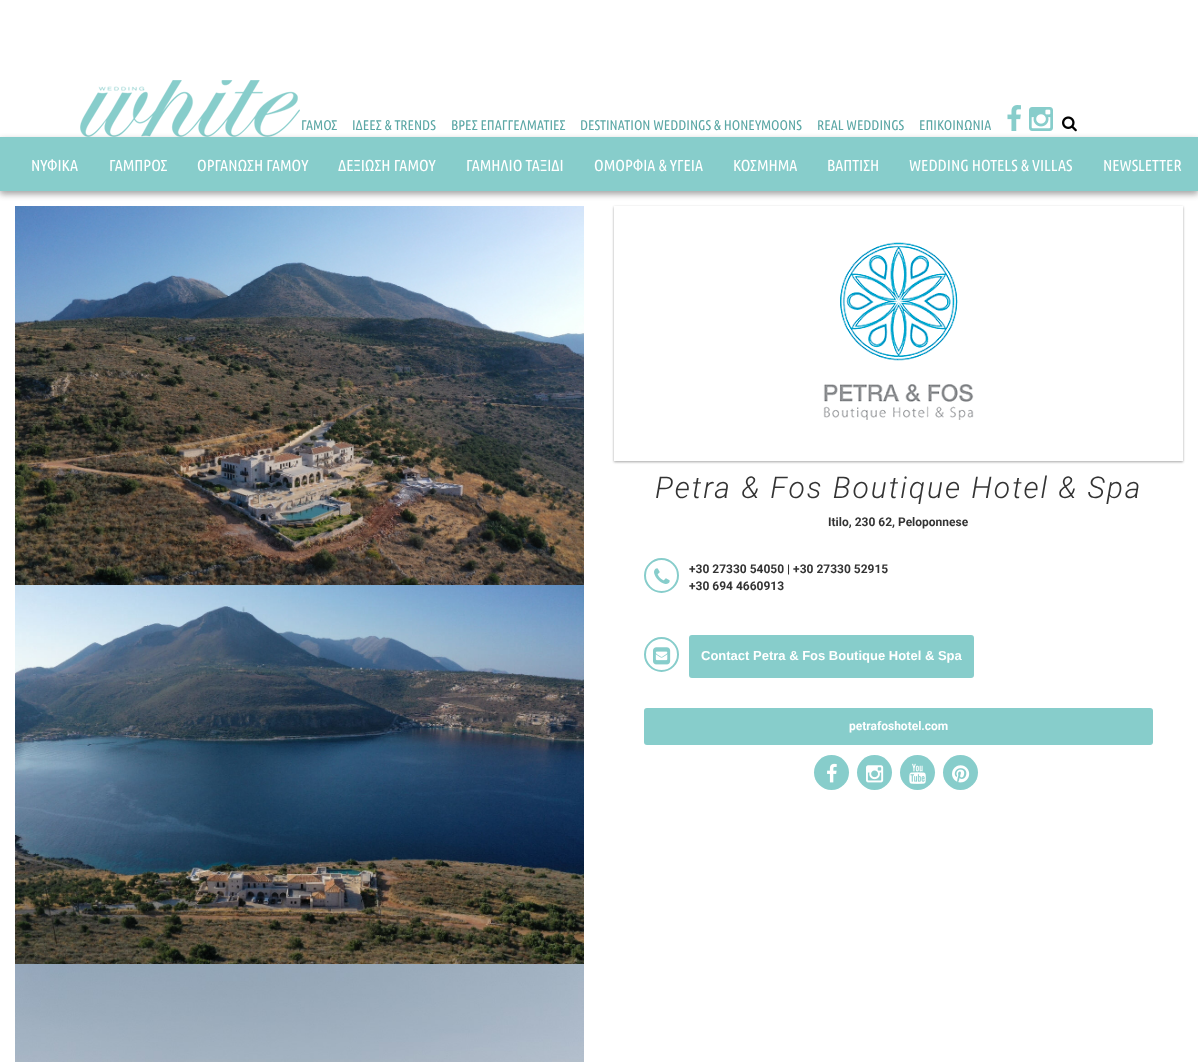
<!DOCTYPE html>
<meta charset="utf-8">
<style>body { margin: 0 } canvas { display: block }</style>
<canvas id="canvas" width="1198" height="1062"></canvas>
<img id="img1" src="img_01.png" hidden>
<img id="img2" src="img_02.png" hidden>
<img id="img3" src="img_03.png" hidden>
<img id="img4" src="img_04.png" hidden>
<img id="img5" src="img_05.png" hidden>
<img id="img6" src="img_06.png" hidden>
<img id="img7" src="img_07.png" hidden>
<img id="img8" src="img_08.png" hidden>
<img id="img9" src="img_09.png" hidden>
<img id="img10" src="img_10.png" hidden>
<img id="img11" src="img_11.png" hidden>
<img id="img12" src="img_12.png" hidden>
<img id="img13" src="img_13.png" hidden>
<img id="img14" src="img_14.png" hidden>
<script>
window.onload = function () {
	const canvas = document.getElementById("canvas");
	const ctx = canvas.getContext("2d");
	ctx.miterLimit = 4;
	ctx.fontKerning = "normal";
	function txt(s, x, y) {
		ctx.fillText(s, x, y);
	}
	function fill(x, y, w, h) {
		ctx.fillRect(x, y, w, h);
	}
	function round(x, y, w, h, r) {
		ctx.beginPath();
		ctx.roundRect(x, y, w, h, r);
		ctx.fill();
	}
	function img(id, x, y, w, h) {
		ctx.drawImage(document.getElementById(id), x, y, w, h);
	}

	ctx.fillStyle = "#FFFFFF";
	fill(0, 0, 1198, 1062);
	img("img1", 80, 80, 220, 57);
	img("img2", 1007, 105, 14, 26);
	img("img3", 1029, 107, 24, 24);
	img("img4", 1062, 116, 15, 16);
	ctx.fillStyle = "rgba(0, 0, 0, 0.23)";
	ctx.filter = "blur(3px)";
	ctx.beginPath();
	ctx.rect(0, 140, 1198, 54);
	ctx.fill();
	ctx.filter = "none";
	ctx.fillStyle = "rgba(0, 0, 0, 0.16)";
	ctx.filter = "blur(3px)";
	ctx.beginPath();
	ctx.rect(0, 140, 1198, 54);
	ctx.fill();
	ctx.filter = "none";
	ctx.fillStyle = "#87CDCB";
	fill(0, 137, 1198, 54);
	img("img5", 15, 206, 569, 379);
	img("img6", 15, 585, 569, 379);
	img("img7", 15, 964, 569, 98);
	ctx.save();
	ctx.beginPath();
	ctx.moveTo(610, 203);
	ctx.lineTo(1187, 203);
	ctx.lineTo(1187, 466);
	ctx.lineTo(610, 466);
	ctx.closePath();
	ctx.moveTo(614, 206);
	ctx.lineTo(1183, 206);
	ctx.lineTo(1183, 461);
	ctx.lineTo(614, 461);
	ctx.closePath();
	ctx.clip("evenodd");
	ctx.fillStyle = "rgba(0, 0, 0, 0.24)";
	ctx.filter = "blur(1px)";
	ctx.beginPath();
	ctx.rect(614, 207, 569, 255);
	ctx.fill();
	ctx.filter = "none";
	ctx.restore();
	ctx.save();
	ctx.beginPath();
	ctx.moveTo(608, 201);
	ctx.lineTo(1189, 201);
	ctx.lineTo(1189, 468);
	ctx.lineTo(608, 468);
	ctx.closePath();
	ctx.moveTo(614, 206);
	ctx.lineTo(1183, 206);
	ctx.lineTo(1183, 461);
	ctx.lineTo(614, 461);
	ctx.closePath();
	ctx.clip("evenodd");
	ctx.fillStyle = "rgba(0, 0, 0, 0.12)";
	ctx.filter = "blur(1.5px)";
	ctx.beginPath();
	ctx.rect(614, 207, 569, 255);
	ctx.fill();
	ctx.filter = "none";
	ctx.restore();
	img("img8", 823, 242, 151, 178);
	ctx.beginPath();
	ctx.arc(661.5, 575.5, 16.5, 0, Math.PI * 2);
	ctx.strokeStyle = "#87CDCB";
	ctx.lineWidth = 2;
	ctx.stroke();
	img("img9", 654, 568, 16, 16);
	ctx.beginPath();
	ctx.arc(661.5, 654.5, 16.5, 0, Math.PI * 2);
	ctx.stroke();
	img("img10", 653, 647, 18, 18);
	ctx.beginPath();
	ctx.roundRect(690, 636, 283, 41, 2);
	ctx.fill();
	ctx.stroke();
	round(644, 708, 509, 37, 3);
	ctx.beginPath();
	ctx.arc(831.5, 772.5, 17.5, 0, Math.PI * 2);
	ctx.fill();
	img("img11", 827, 763, 10, 20);
	ctx.beginPath();
	ctx.arc(874.5, 772.5, 17.5, 0, Math.PI * 2);
	ctx.fill();
	img("img12", 866, 765, 18, 18);
	ctx.beginPath();
	ctx.arc(917.5, 772.5, 17.5, 0, Math.PI * 2);
	ctx.fill();
	img("img13", 909, 763, 17, 21);
	ctx.beginPath();
	ctx.arc(960.5, 772.5, 17.5, 0, Math.PI * 2);
	ctx.fill();
	img("img14", 952, 765, 18, 18);
	ctx.font = "14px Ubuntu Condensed";
	ctx.fillStyle = "#5BA7A5";
	txt("ΓΑΜΟΣ", 301, 130);
	txt("ΙΔΕΕΣ & TRENDS", 352, 130);
	txt("ΒΡΕΣ ΕΠΑΓΓΕΛΜΑΤΙΕΣ", 451, 130);
	txt("DESTINATION WEDDINGS & HONEYMOONS", 580, 130);
	txt("REAL WEDDINGS", 817, 130);
	txt("ΕΠΙΚΟΙΝΩΝΙΑ", 919, 130);
	ctx.font = "16px Ubuntu Condensed";
	ctx.fillStyle = "#FFFFFF";
	txt("ΝΥΦΙΚΑ", 31, 171);
	txt("ΓΑΜΠΡΟΣ", 109, 171);
	txt("ΟΡΓΑΝΩΣΗ ΓΑΜΟΥ", 197, 171);
	txt("ΔΕΞΙΩΣΗ ΓΑΜΟΥ", 338, 171);
	txt("ΓΑΜΗΛΙΟ ΤΑΞΙΔΙ", 466, 171);
	txt("ΟΜΟΡΦΙΑ & ΥΓΕΙΑ", 594, 171);
	txt("ΚΟΣΜΗΜΑ", 733, 171);
	txt("ΒΑΠΤΙΣΗ", 827, 171);
	txt("WEDDING HOTELS & VILLAS", 909, 171);
	txt("NEWSLETTER", 1103, 171);
	ctx.letterSpacing = "2px";
	ctx.font = "italic 300 30px Roboto";
	ctx.fillStyle = "#333333";
	txt("Petra & Fos Boutique Hotel & Spa", 655, 498);
	ctx.letterSpacing = "0px";
	ctx.font = "bold 12px Roboto";
	txt("Itilo, 230 62, Peloponnese", 828, 526);
	txt("+30 27330 54050 | +30 27330 52915", 689, 573);
	txt("+30 694 4660913", 689, 590);
	ctx.font = "bold 13px Liberation Sans";
	ctx.fillStyle = "#FFFFFF";
	txt("Contact Petra & Fos Boutique Hotel & Spa", 701, 660);
	ctx.font = "bold 12px Roboto";
	txt("petrafoshotel.com", 849, 730);
};
</script>
